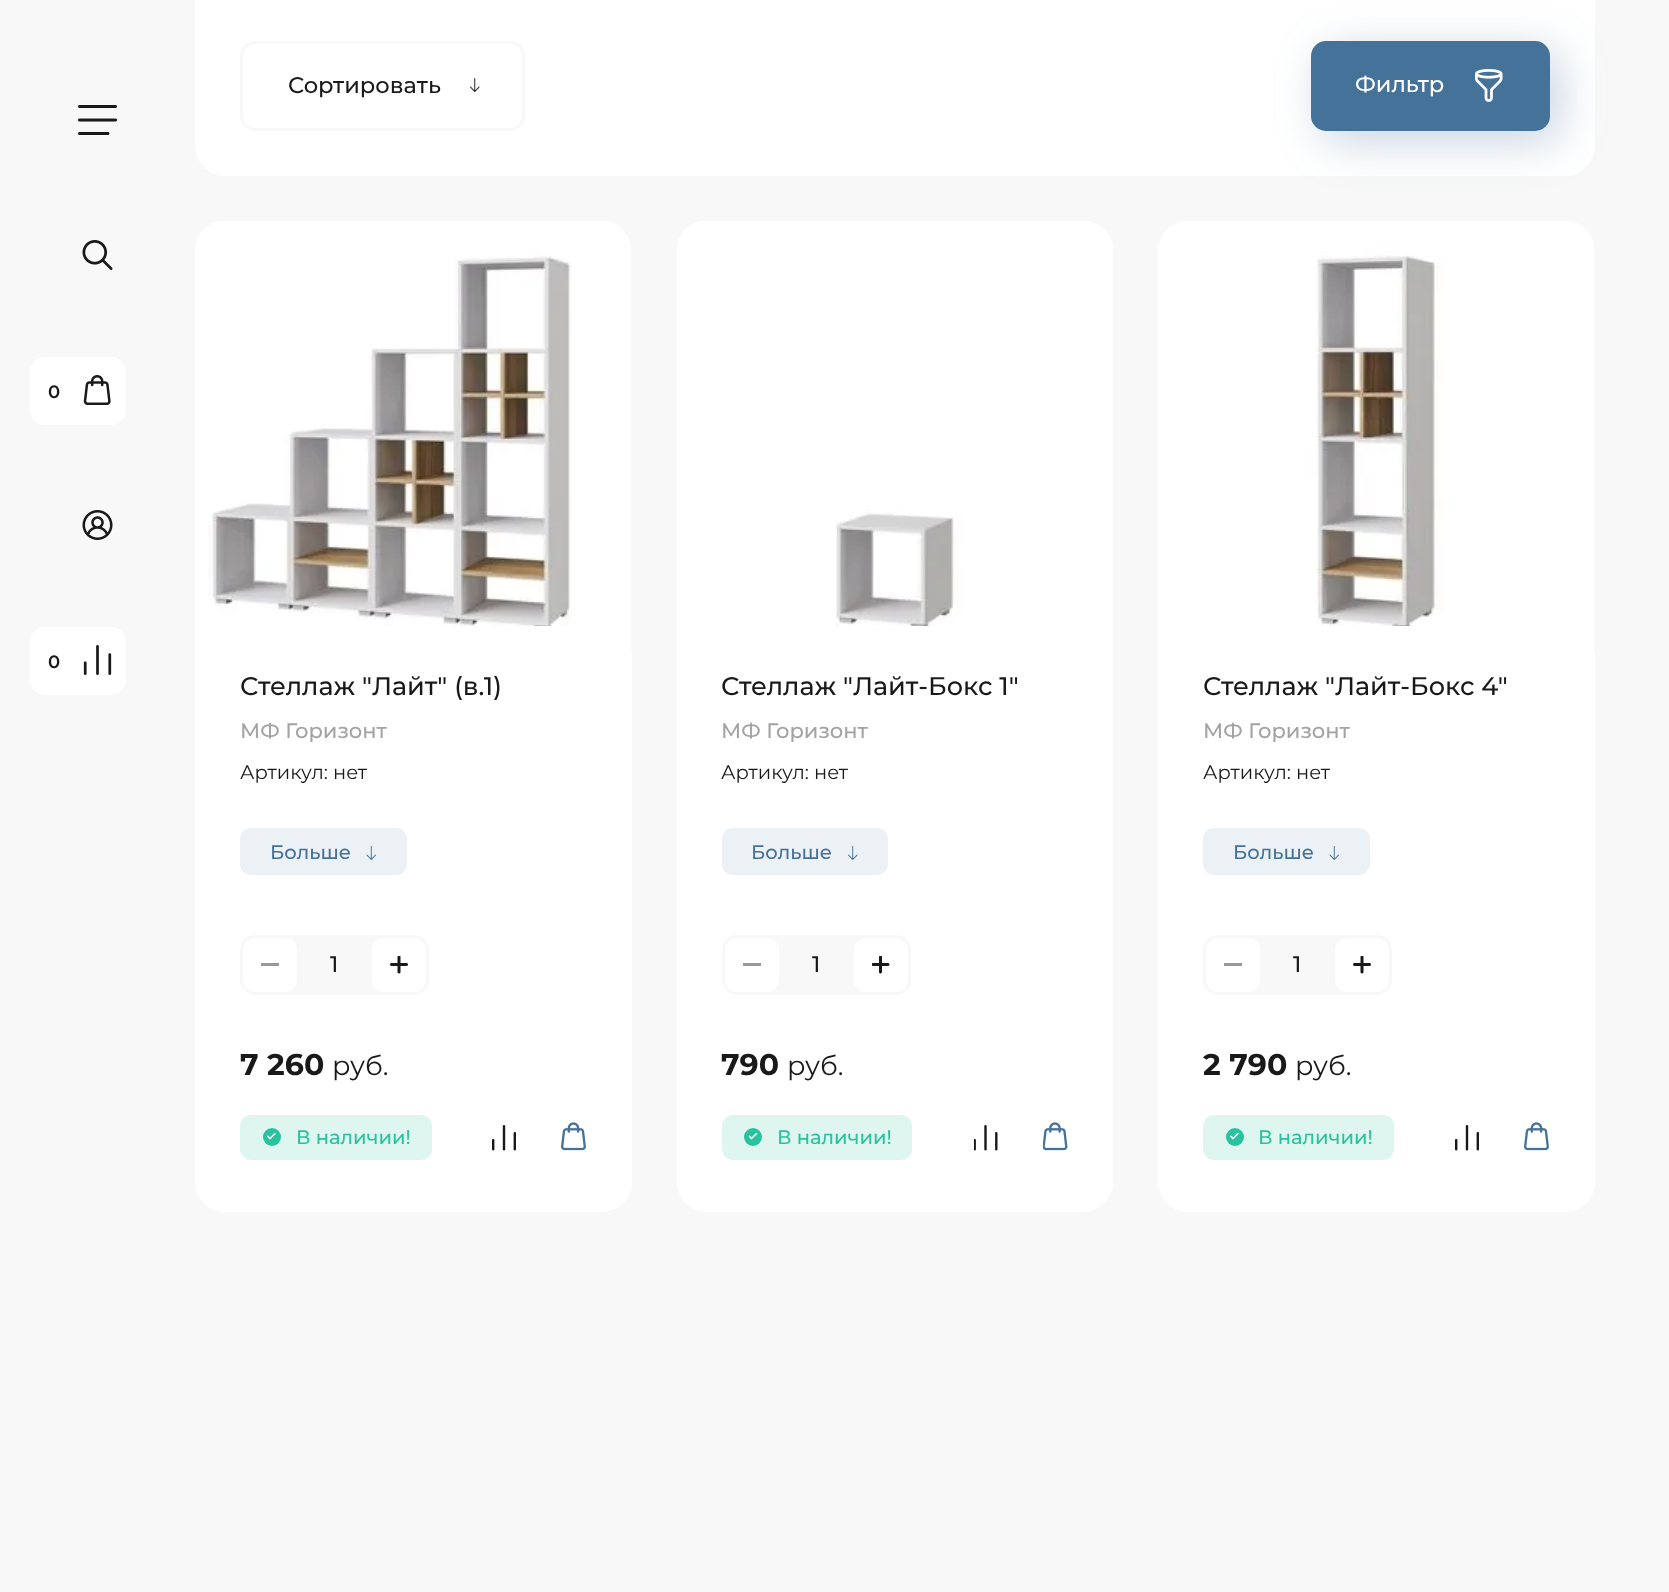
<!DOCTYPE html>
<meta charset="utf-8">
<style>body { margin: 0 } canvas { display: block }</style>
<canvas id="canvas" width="1669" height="1592"></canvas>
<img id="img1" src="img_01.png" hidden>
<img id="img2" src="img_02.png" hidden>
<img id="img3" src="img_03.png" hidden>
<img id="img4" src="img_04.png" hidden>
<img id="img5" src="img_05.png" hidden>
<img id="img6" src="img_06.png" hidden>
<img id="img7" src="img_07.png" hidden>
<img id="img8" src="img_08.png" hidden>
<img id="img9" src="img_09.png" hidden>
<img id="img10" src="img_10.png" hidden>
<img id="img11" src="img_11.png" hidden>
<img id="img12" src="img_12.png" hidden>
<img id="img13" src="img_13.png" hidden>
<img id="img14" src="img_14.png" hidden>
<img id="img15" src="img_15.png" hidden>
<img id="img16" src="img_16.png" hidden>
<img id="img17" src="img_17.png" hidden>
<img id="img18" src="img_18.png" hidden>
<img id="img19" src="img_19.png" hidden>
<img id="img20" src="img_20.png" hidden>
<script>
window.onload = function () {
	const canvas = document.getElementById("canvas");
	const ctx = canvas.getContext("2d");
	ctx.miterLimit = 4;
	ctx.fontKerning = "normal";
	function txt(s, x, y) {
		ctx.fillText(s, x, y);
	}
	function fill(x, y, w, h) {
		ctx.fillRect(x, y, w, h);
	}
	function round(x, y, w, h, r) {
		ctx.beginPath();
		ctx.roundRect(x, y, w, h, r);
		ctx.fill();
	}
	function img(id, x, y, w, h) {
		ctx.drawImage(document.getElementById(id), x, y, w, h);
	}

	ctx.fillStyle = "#F8F8F8";
	fill(0, 0, 1669, 1592);
	img("img1", 78, 105, 39, 30);
	img("img2", 82, 240, 31, 30);
	ctx.fillStyle = "#FFFFFF";
	round(30, 357, 96, 68, 15);
	img("img3", 83, 375, 28, 30);
	img("img4", 82, 510, 31, 30);
	round(30, 627, 96, 68, 15);
	img("img5", 83, 645, 29, 30);
	fill(195, 0, 1400, 3);
	ctx.beginPath();
	ctx.roundRect(195, 3, 1400, 173, [0, 0, 30, 30]);
	ctx.fill();
	ctx.beginPath();
	ctx.roundRect(241.5, 42.5, 282, 87, 13.5);
	ctx.strokeStyle = "#F8F8F8";
	ctx.lineWidth = 3;
	ctx.stroke();
	img("img6", 470, 78, 10, 15);
	ctx.fillStyle = "rgba(69, 114, 153, 0.3)";
	ctx.filter = "blur(22.5px)";
	ctx.beginPath();
	ctx.roundRect(1322, 51, 238, 90, 15);
	ctx.fill();
	ctx.filter = "none";
	ctx.fillStyle = "#457299";
	round(1311, 41, 239, 90, 15);
	img("img7", 1475, 69, 28, 33);
	img("img8", 195, 221, 436, 434);
	ctx.fillStyle = "#FFFFFF";
	ctx.beginPath();
	ctx.roundRect(195, 626, 437, 30, [30, 30, 0, 0]);
	ctx.fill();
	ctx.beginPath();
	ctx.roundRect(195, 656, 437, 556, [0, 0, 30, 30]);
	ctx.fill();
	ctx.fillStyle = "#ECF1F5";
	round(240, 828, 167, 47, 11);
	img("img9", 366, 846, 10, 15);
	ctx.fillStyle = "#F8F8F8";
	round(240, 935, 189, 60, 15);
	ctx.fillStyle = "#FFFFFF";
	round(243, 938, 54, 54, 12);
	ctx.fillStyle = "#999999";
	fill(261, 963, 18, 3);
	ctx.fillStyle = "#FFFFFF";
	round(372, 938, 54, 54, 12);
	img("img10", 390, 956, 18, 18);
	ctx.fillStyle = "#DFF6F0";
	round(240, 1115, 192, 45, 11);
	ctx.fillStyle = "#29C29E";
	ctx.beginPath();
	ctx.arc(272, 1137, 9, 0, Math.PI * 2);
	ctx.fill();
	img("img11", 267, 1133, 9, 7);
	img("img12", 492, 1125, 24, 26);
	img("img13", 561, 1122, 25, 29);
	img("img14", 677, 221, 436, 434);
	ctx.fillStyle = "#FFFFFF";
	ctx.beginPath();
	ctx.roundRect(677, 626, 436, 30, [30, 30, 0, 0]);
	ctx.fill();
	ctx.beginPath();
	ctx.roundRect(677, 656, 436, 556, [0, 0, 30, 30]);
	ctx.fill();
	ctx.fillStyle = "#ECF1F5";
	round(722, 828, 166, 47, 11);
	img("img15", 848, 846, 10, 15);
	ctx.fillStyle = "#F8F8F8";
	round(722, 935, 189, 60, 15);
	ctx.fillStyle = "#FFFFFF";
	round(725, 938, 54, 54, 12);
	ctx.fillStyle = "#999999";
	fill(743, 963, 18, 3);
	ctx.fillStyle = "#FFFFFF";
	round(854, 938, 54, 54, 12);
	img("img16", 872, 956, 18, 18);
	ctx.fillStyle = "#DFF6F0";
	round(722, 1115, 190, 45, 11);
	ctx.fillStyle = "#29C29E";
	ctx.beginPath();
	ctx.arc(753, 1137, 9, 0, Math.PI * 2);
	ctx.fill();
	img("img17", 749, 1133, 9, 7);
	img("img18", 974, 1125, 24, 26);
	img("img19", 1043, 1122, 25, 29);
	img("img20", 1158, 221, 436, 434);
	ctx.fillStyle = "#FFFFFF";
	ctx.beginPath();
	ctx.roundRect(1158, 626, 437, 30, [30, 30, 0, 0]);
	ctx.fill();
	ctx.beginPath();
	ctx.roundRect(1158, 656, 437, 556, [0, 0, 30, 30]);
	ctx.fill();
	ctx.fillStyle = "#ECF1F5";
	round(1203, 828, 167, 47, 11);
	img("img9", 1329, 846, 10, 15);
	ctx.fillStyle = "#F8F8F8";
	round(1203, 935, 189, 60, 15);
	ctx.fillStyle = "#FFFFFF";
	round(1206, 938, 54, 54, 12);
	ctx.fillStyle = "#999999";
	fill(1224, 963, 18, 3);
	ctx.fillStyle = "#FFFFFF";
	round(1335, 938, 54, 54, 12);
	img("img10", 1353, 956, 18, 18);
	ctx.fillStyle = "#DFF6F0";
	round(1203, 1115, 191, 45, 11);
	ctx.fillStyle = "#29C29E";
	ctx.beginPath();
	ctx.arc(1235, 1137, 9, 0, Math.PI * 2);
	ctx.fill();
	img("img11", 1230, 1133, 9, 7);
	img("img12", 1455, 1125, 24, 26);
	img("img13", 1524, 1122, 25, 29);
	ctx.font = "600 18px Montserrat";
	ctx.fillStyle = "#191919";
	txt("0", 48, 398);
	txt("0", 48, 668);
	ctx.font = "500 22.5px Montserrat";
	txt("Сортировать", 288, 93);
	ctx.fillStyle = "#FFFFFF";
	txt("Фильтр", 1355, 92);
	ctx.font = "500 25.5px Montserrat";
	ctx.fillStyle = "#191919";
	txt("Стеллаж \"Лайт\" (в.1)", 240, 695);
	ctx.font = "500 21px Montserrat";
	ctx.fillStyle = "#A3A3A3";
	txt("МФ Горизонт", 240, 738);
	ctx.font = "19.5px Montserrat";
	ctx.fillStyle = "#191919";
	txt("Артикул: нет", 240, 779);
	ctx.font = "500 19.5px Montserrat";
	ctx.fillStyle = "#457299";
	txt("Больше", 270, 859);
	ctx.font = "500 22.5px Montserrat";
	ctx.fillStyle = "#191919";
	txt("1", 330, 972);
	ctx.font = "bold 30px Montserrat";
	txt("7 260", 240, 1075);
	ctx.font = "27px Montserrat";
	txt("руб.", 332, 1075);
	ctx.font = "500 19.5px Montserrat";
	ctx.fillStyle = "#29C29E";
	txt("В наличии!", 296, 1144);
	ctx.font = "500 25.5px Montserrat";
	ctx.fillStyle = "#191919";
	txt("Стеллаж \"Лайт-Бокс 1\"", 721, 695);
	ctx.font = "500 21px Montserrat";
	ctx.fillStyle = "#A3A3A3";
	txt("МФ Горизонт", 721, 738);
	ctx.font = "19.5px Montserrat";
	ctx.fillStyle = "#191919";
	txt("Артикул: нет", 721, 779);
	ctx.font = "500 19.5px Montserrat";
	ctx.fillStyle = "#457299";
	txt("Больше", 751, 859);
	ctx.font = "500 22.5px Montserrat";
	ctx.fillStyle = "#191919";
	txt("1", 812, 972);
	ctx.font = "bold 30px Montserrat";
	txt("790", 721, 1075);
	ctx.font = "27px Montserrat";
	txt("руб.", 787, 1075);
	ctx.font = "500 19.5px Montserrat";
	ctx.fillStyle = "#29C29E";
	txt("В наличии!", 777, 1144);
	ctx.font = "500 25.5px Montserrat";
	ctx.fillStyle = "#191919";
	txt("Стеллаж \"Лайт-Бокс 4\"", 1203, 695);
	ctx.font = "500 21px Montserrat";
	ctx.fillStyle = "#A3A3A3";
	txt("МФ Горизонт", 1203, 738);
	ctx.font = "19.5px Montserrat";
	ctx.fillStyle = "#191919";
	txt("Артикул: нет", 1203, 779);
	ctx.font = "500 19.5px Montserrat";
	ctx.fillStyle = "#457299";
	txt("Больше", 1233, 859);
	ctx.font = "500 22.5px Montserrat";
	ctx.fillStyle = "#191919";
	txt("1", 1293, 972);
	ctx.font = "bold 30px Montserrat";
	txt("2 790", 1203, 1075);
	ctx.font = "27px Montserrat";
	txt("руб.", 1295, 1075);
	ctx.font = "500 19.5px Montserrat";
	ctx.fillStyle = "#29C29E";
	txt("В наличии!", 1258, 1144);
};
</script>
